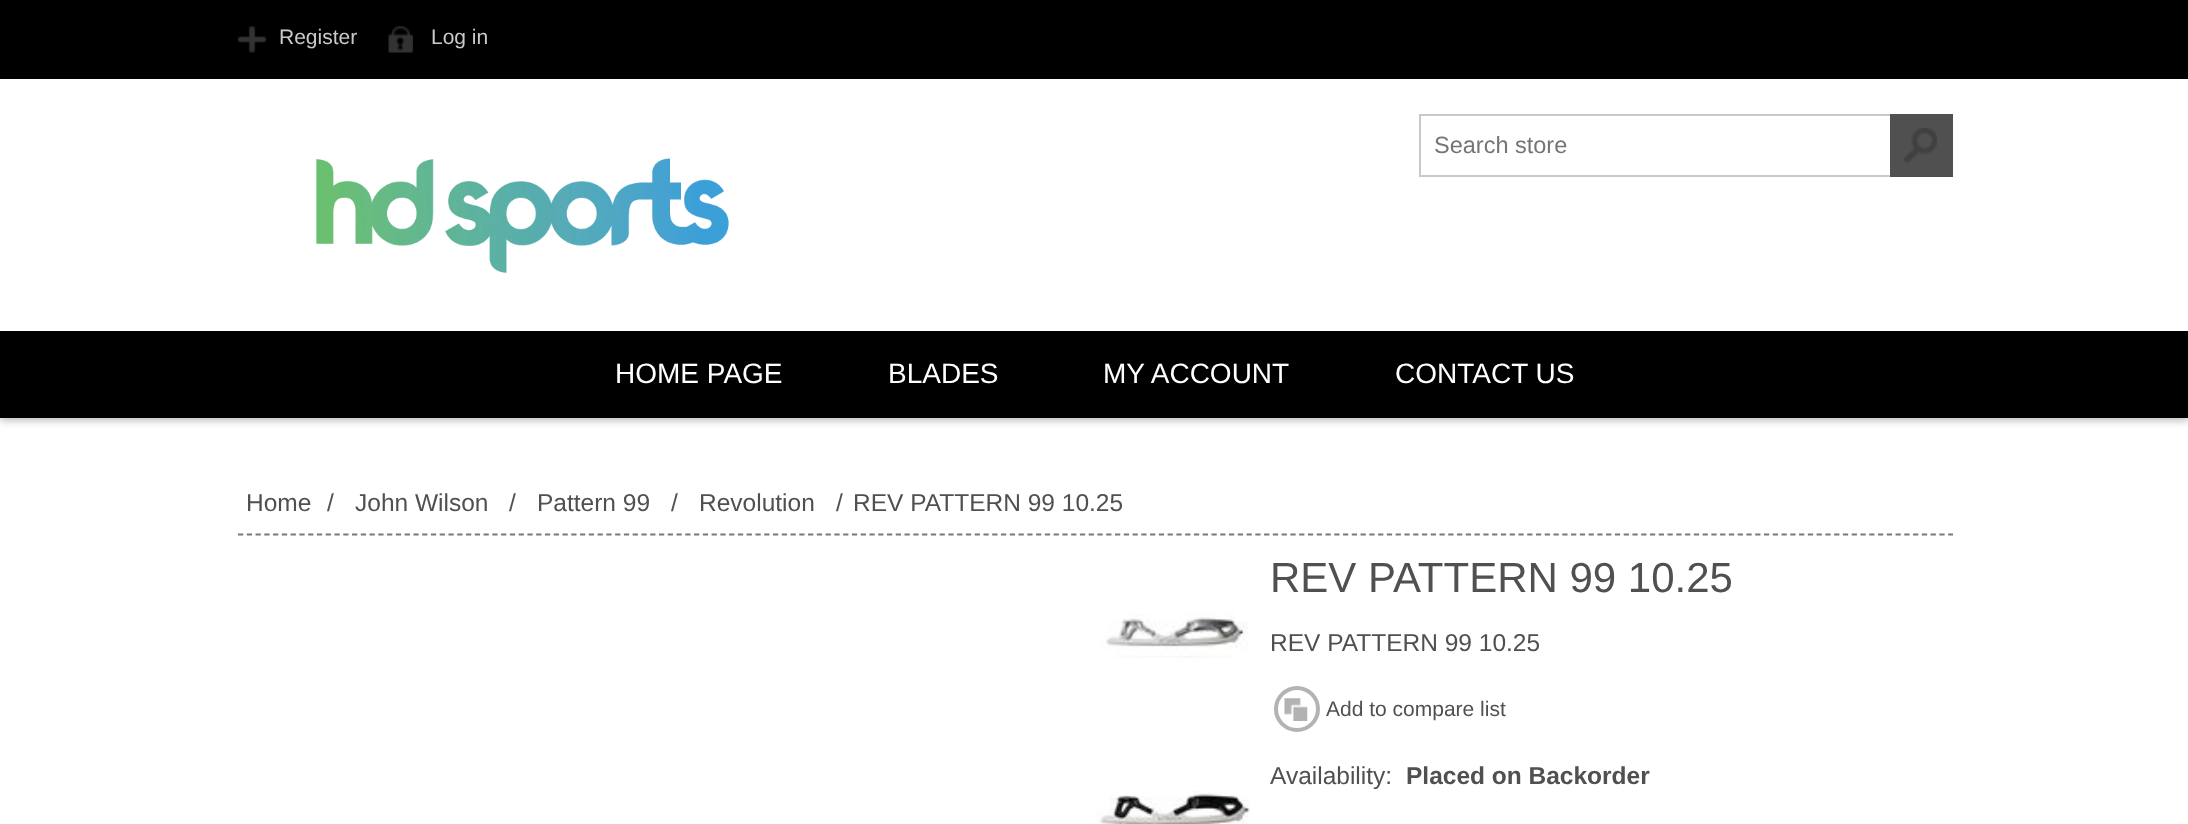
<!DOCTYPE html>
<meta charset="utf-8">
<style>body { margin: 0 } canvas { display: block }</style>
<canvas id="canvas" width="2188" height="824"></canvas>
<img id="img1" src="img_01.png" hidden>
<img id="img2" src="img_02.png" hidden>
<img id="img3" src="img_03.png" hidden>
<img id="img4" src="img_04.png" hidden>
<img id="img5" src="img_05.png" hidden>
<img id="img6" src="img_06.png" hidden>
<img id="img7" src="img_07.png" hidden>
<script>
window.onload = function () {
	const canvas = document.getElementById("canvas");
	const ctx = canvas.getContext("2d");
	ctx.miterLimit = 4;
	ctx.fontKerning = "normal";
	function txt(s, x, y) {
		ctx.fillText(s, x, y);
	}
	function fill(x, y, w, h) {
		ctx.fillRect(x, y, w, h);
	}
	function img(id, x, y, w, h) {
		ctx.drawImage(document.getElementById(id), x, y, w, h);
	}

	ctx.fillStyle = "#FFFFFF";
	fill(0, 0, 2188, 824);
	ctx.fillStyle = "rgba(0, 0, 0, 0.3)";
	ctx.filter = "blur(4.5px)";
	ctx.beginPath();
	ctx.rect(0, 333, 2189, 87);
	ctx.fill();
	ctx.filter = "none";
	ctx.fillStyle = "#000000";
	fill(0, 331, 2188, 87);
	ctx.fillStyle = "rgba(0, 0, 0, 0.15)";
	ctx.filter = "blur(2.5px)";
	ctx.beginPath();
	ctx.rect(-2, 0, 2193, 334);
	ctx.fill();
	ctx.filter = "none";
	ctx.fillStyle = "#000000";
	fill(0, 0, 2188, 79);
	img("img1", 238, 26, 28, 27);
	img("img2", 388, 26, 25, 27);
	ctx.fillStyle = "#FFFFFF";
	fill(0, 79, 2188, 252);
	ctx.strokeStyle = "#C9C9C9";
	ctx.lineWidth = 2;
	ctx.strokeRect(1420, 115, 471, 61);
	ctx.fillStyle = "#505050";
	fill(1890, 114, 63, 63);
	img("img3", 1904, 128, 33, 35);
	img("img4", 316, 158, 413, 115);
	ctx.beginPath();
	ctx.moveTo(238, 534.5);
	ctx.lineTo(1953, 534.5);
	ctx.strokeStyle = "#797979";
	ctx.lineWidth = 1.8;
	ctx.setLineDash([5.25, 3.52]);
	ctx.stroke();
	img("img5", 1101, 613, 148, 45);
	img("img6", 1096, 791, 154, 33);
	img("img7", 1284, 698, 24, 23);
	ctx.beginPath();
	ctx.arc(1297, 709, 21, 0, Math.PI * 2);
	ctx.strokeStyle = "#B3B3B3";
	ctx.lineWidth = 4;
	ctx.setLineDash([]);
	ctx.stroke();
	ctx.font = "21px Liberation Sans";
	ctx.fillStyle = "#C9C9C9";
	txt("Register", 279, 44);
	txt("Log in", 431, 44);
	ctx.font = "23.5px Liberation Sans";
	ctx.fillStyle = "#757575";
	txt("Search store", 1434, 153);
	ctx.font = "28px Liberation Sans";
	ctx.fillStyle = "#FFFFFF";
	txt("HOME PAGE", 615, 383);
	txt("BLADES", 888, 383);
	txt("MY ACCOUNT", 1103, 383);
	txt("CONTACT US", 1395, 383);
	ctx.font = "24.5px Liberation Sans";
	ctx.fillStyle = "#505050";
	txt("Home", 246, 511);
	txt("/", 327, 511);
	txt("John Wilson", 355, 511);
	txt("/", 509, 511);
	txt("Pattern 99", 537, 511);
	txt("/", 671, 511);
	txt("Revolution", 699, 511);
	txt("/", 836, 511);
	txt("REV PATTERN 99 10.25", 853, 511);
	ctx.font = "42px Liberation Sans";
	txt("REV PATTERN 99 10.25", 1270, 592);
	ctx.font = "24.5px Liberation Sans";
	txt("REV PATTERN 99 10.25", 1270, 651);
	ctx.font = "21px Liberation Sans";
	txt("Add to compare list", 1326, 716);
	ctx.font = "24.5px Liberation Sans";
	txt("Availability:", 1270, 784);
	ctx.font = "bold 24.5px Liberation Sans";
	txt("Placed on Backorder", 1406, 784);
};
</script>
